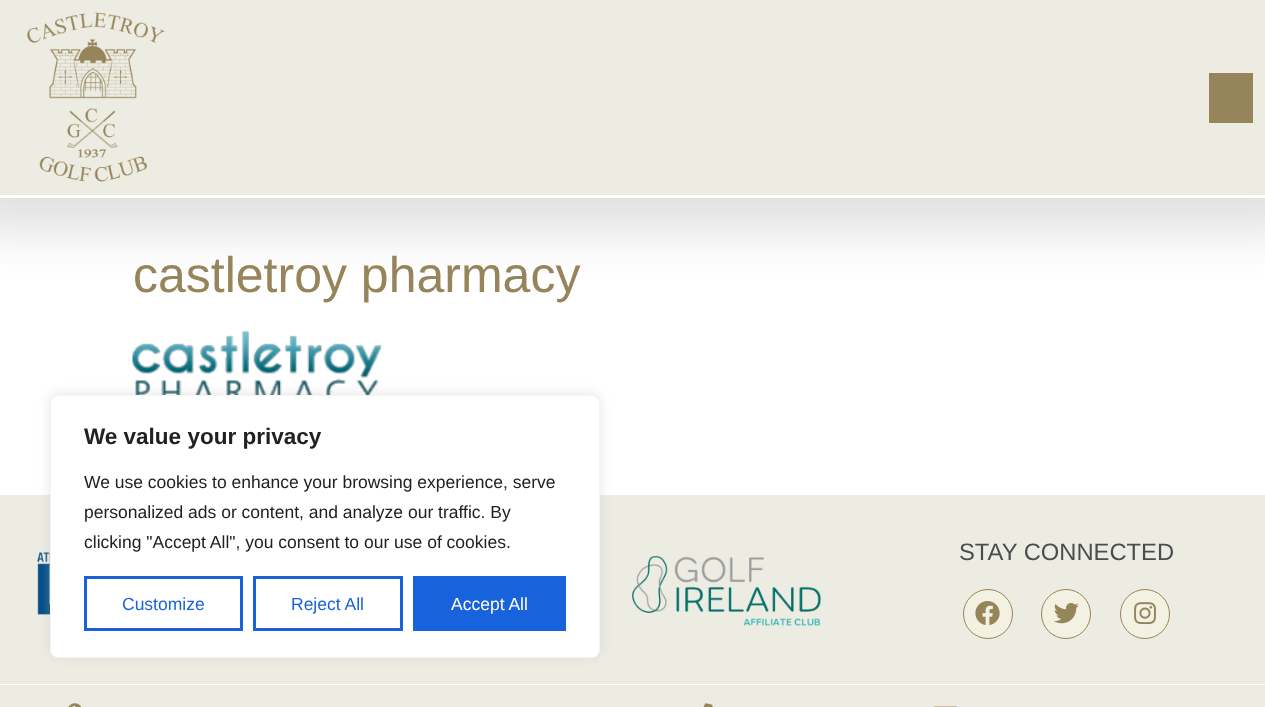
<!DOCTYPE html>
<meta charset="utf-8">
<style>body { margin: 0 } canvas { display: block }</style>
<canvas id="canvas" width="1265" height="707"></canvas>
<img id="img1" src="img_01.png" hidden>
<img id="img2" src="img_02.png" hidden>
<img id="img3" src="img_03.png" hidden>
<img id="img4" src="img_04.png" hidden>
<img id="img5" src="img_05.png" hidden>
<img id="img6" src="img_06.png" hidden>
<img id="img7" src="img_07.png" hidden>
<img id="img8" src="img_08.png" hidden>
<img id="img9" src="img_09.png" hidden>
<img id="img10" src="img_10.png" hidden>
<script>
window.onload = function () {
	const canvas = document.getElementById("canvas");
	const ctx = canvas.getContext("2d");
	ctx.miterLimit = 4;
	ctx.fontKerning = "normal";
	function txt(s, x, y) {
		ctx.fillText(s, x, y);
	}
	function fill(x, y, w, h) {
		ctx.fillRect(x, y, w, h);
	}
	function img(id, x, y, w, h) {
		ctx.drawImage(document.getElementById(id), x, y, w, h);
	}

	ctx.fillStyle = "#FFFFFF";
	fill(0, 0, 1265, 707);
	ctx.fillStyle = "rgba(0, 0, 0, 0.12)";
	ctx.filter = "blur(24.5px)";
	ctx.beginPath();
	ctx.rect(-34, -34, 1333, 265);
	ctx.fill();
	ctx.filter = "none";
	ctx.fillStyle = "#EDECE3";
	fill(0, 0, 1265, 195);
	ctx.fillStyle = "#FFFFFF";
	fill(0, 195, 1265, 3);
	img("img1", 27, 12, 138, 170);
	ctx.fillStyle = "#96855A";
	fill(1209, 73, 44, 50);
	img("img2", 132, 331, 250, 64);
	ctx.fillStyle = "#EDECE3";
	fill(0, 495, 1265, 189);
	img("img3", 37, 552, 13, 63);
	ctx.fillStyle = "rgba(172, 171, 171, 0.3)";
	ctx.filter = "blur(6px)";
	ctx.beginPath();
	ctx.roundRect(50, 394, 550, 262, 8);
	ctx.fill();
	ctx.filter = "none";
	ctx.fillStyle = "#FFFFFF";
	ctx.beginPath();
	ctx.roundRect(50.5, 395.5, 549, 262, 7.5);
	ctx.fill();
	ctx.strokeStyle = "#F4F4F4";
	ctx.stroke();
	ctx.strokeStyle = "#1863DC";
	ctx.lineWidth = 3;
	ctx.strokeRect(85.5, 577.5, 156, 52);
	ctx.strokeRect(254.5, 577.5, 147, 52);
	ctx.fillStyle = "#1863DC";
	fill(413, 576, 153, 55);
	img("img4", 632, 556, 190, 70);
	ctx.fillStyle = "#F3F1E2";
	ctx.beginPath();
	ctx.arc(988, 614, 24.5, 0, Math.PI * 2);
	ctx.fill();
	ctx.strokeStyle = "#96855A";
	ctx.lineWidth = 1;
	ctx.stroke();
	img("img5", 975, 601, 25, 24);
	ctx.beginPath();
	ctx.arc(1066, 614, 24.5, 0, Math.PI * 2);
	ctx.fill();
	ctx.stroke();
	img("img6", 1054, 603, 25, 21);
	ctx.beginPath();
	ctx.arc(1145, 614, 24.5, 0, Math.PI * 2);
	ctx.fill();
	ctx.stroke();
	img("img7", 1134, 602, 22, 23);
	ctx.fillStyle = "#EDECE3";
	fill(0, 685, 1265, 22);
	img("img8", 68, 703, 14, 4);
	img("img9", 703, 703, 10, 4);
	img("img10", 933, 706, 25, 1);
	ctx.font = "50px Liberation Sans";
	ctx.fillStyle = "#96855A";
	txt("castletroy pharmacy", 133, 292);
	ctx.font = "bold 22.5px Liberation Sans";
	ctx.fillStyle = "#212121";
	txt("We value your privacy", 84, 444);
	ctx.font = "17.5px Liberation Sans";
	txt("We use cookies to enhance your browsing experience, serve", 84, 488);
	txt("personalized ads or content, and analyze our traffic. By", 84, 518);
	txt("clicking \"Accept All\", you consent to our use of cookies.", 84, 548);
	ctx.fillStyle = "#1863DC";
	txt("Customize", 122, 610);
	txt("Reject All", 291, 610);
	ctx.fillStyle = "#FFFFFF";
	txt("Accept All", 451, 610);
	ctx.font = "23.75px Liberation Sans";
	ctx.fillStyle = "#4B4C4D";
	txt("STAY CONNECTED", 959, 560);
};
</script>
